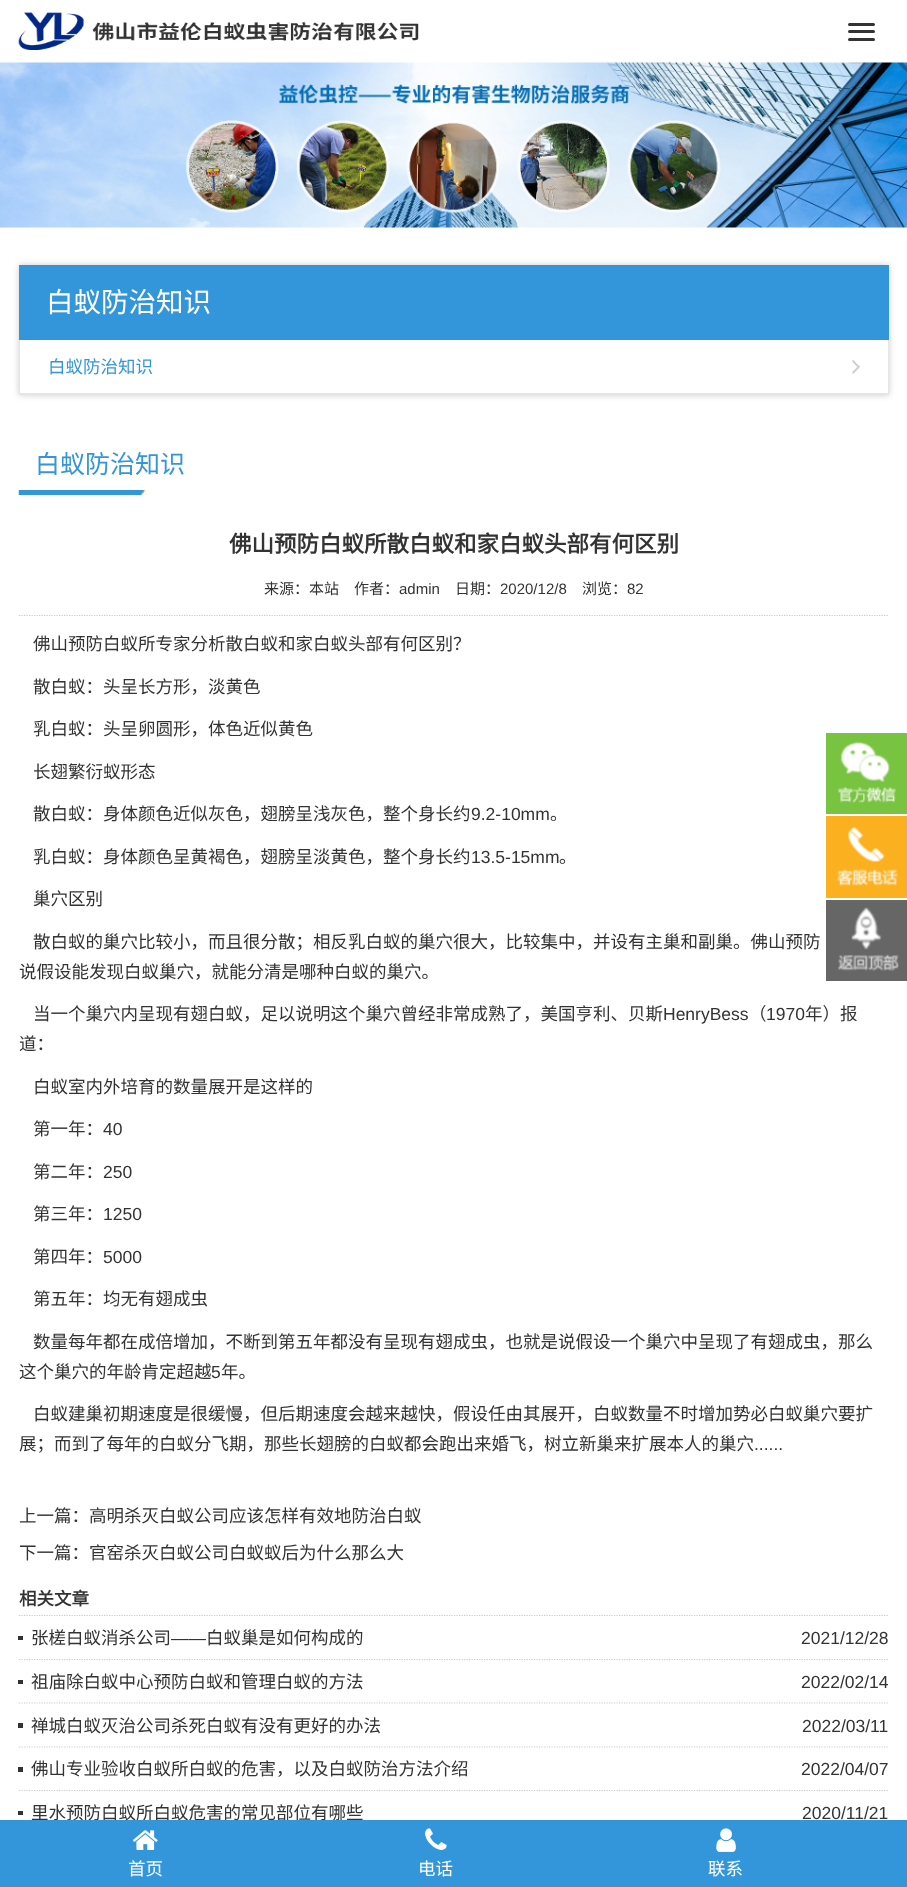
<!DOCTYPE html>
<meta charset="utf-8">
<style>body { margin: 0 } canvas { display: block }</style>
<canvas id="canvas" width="907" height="1887"></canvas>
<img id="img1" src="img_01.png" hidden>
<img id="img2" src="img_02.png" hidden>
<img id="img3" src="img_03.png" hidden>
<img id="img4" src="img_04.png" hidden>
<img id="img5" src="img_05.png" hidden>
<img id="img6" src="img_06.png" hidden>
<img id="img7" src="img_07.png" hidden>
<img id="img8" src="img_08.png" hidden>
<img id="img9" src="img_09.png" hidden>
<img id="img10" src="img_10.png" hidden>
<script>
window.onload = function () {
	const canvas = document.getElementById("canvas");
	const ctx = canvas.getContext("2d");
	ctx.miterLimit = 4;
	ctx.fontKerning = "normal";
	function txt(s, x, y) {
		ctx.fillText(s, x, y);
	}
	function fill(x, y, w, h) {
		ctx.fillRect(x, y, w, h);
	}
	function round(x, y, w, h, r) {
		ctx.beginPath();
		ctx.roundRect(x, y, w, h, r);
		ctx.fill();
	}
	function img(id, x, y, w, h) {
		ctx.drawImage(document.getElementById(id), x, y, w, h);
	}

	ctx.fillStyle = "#FFFFFF";
	fill(0, 0, 907, 1887);
	img("img1", 18, 12, 401, 38);
	ctx.fillStyle = "#333333";
	round(848, 23, 27, 3, 1.5);
	round(848, 30, 27, 3, 1.5);
	round(848, 38, 27, 3, 1.5);
	img("img2", 0, 62, 907, 166);
	ctx.fillStyle = "#CCCCCC";
	ctx.filter = "blur(3px)";
	ctx.beginPath();
	ctx.rect(19, 265, 870, 130);
	ctx.fill();
	ctx.filter = "none";
	ctx.fillStyle = "#3496DA";
	fill(19, 265, 870, 75);
	ctx.fillStyle = "#FFFFFF";
	fill(20, 340, 868, 53);
	ctx.fillStyle = "#E5E5E5";
	fill(888, 340, 1, 55);
	fill(19, 394, 870, 1);
	fill(19, 340, 1, 55);
	fill(20, 393, 868, 1);
	img("img3", 852, 360, 8, 14);
	img("img4", 18, 490, 131, 5);
	ctx.beginPath();
	ctx.moveTo(19, 615.5);
	ctx.lineTo(889, 615.5);
	ctx.strokeStyle = "#CCCCCC";
	ctx.lineWidth = 1.2;
	ctx.setLineDash([1.25, 1.25]);
	ctx.stroke();
	ctx.beginPath();
	ctx.moveTo(19, 1615.5);
	ctx.lineTo(889, 1615.5);
	ctx.stroke();
	ctx.fillStyle = "#333333";
	fill(18, 1636, 5, 4);
	ctx.beginPath();
	ctx.moveTo(19, 1659.5);
	ctx.lineTo(889, 1659.5);
	ctx.stroke();
	fill(18, 1680, 5, 4);
	ctx.beginPath();
	ctx.moveTo(19, 1703);
	ctx.lineTo(889, 1703);
	ctx.stroke();
	fill(18, 1723, 5, 5);
	ctx.beginPath();
	ctx.moveTo(19, 1747);
	ctx.lineTo(889, 1747);
	ctx.stroke();
	fill(18, 1767, 5, 5);
	ctx.beginPath();
	ctx.moveTo(19, 1790.5);
	ctx.lineTo(889, 1790.5);
	ctx.stroke();
	fill(18, 1811, 5, 4);
	ctx.fillStyle = "#78C340";
	fill(826, 733, 81, 81);
	img("img5", 838, 741, 59, 62);
	ctx.fillStyle = "#FBB01F";
	fill(826, 816, 81, 82);
	img("img6", 837, 826, 61, 60);
	ctx.fillStyle = "#666666";
	fill(826, 900, 81, 81);
	img("img7", 838, 907, 61, 64);
	ctx.font = "27.5px Noto Sans CJK SC";
	ctx.fillStyle = "#FFFFFF";
	txt("白蚁防治知识", 46, 312);
	ctx.font = "17.5px Noto Sans CJK SC";
	ctx.fillStyle = "#3496DA";
	txt("白蚁防治知识", 48, 373);
	ctx.font = "25px Noto Sans CJK SC";
	txt("白蚁防治知识", 35, 473);
	ctx.font = "bold 22.5px Noto Sans CJK SC";
	ctx.fillStyle = "#333333";
	txt("佛山预防白蚁所散白蚁和家白蚁头部有何区别", 229, 552);
	ctx.font = "15px Noto Sans CJK SC";
	txt("来源：本站", 264, 594);
	txt("作者：", 354, 594);
	ctx.font = "15px Liberation Sans";
	txt("admin", 399, 594);
	ctx.font = "15px Noto Sans CJK SC";
	txt("日期：", 455, 594);
	ctx.font = "15px Liberation Sans";
	txt("2020/12/8", 500, 594);
	ctx.font = "15px Noto Sans CJK SC";
	txt("浏览：", 582, 594);
	ctx.font = "15px Liberation Sans";
	txt("82", 627, 594);
	ctx.font = "17.5px Noto Sans CJK SC";
	txt("佛山预防白蚁所专家分析散白蚁和家白蚁头部有何区别？", 33, 650);
	txt("散白蚁：头呈长方形，淡黄色", 33, 693);
	txt("乳白蚁：头呈卵圆形，体色近似黄色", 33, 735);
	txt("长翅繁衍蚁形态", 33, 778);
	txt("散白蚁：身体颜色近似灰色，翅膀呈浅灰色，整个身长约", 33, 820);
	ctx.font = "17.5px Liberation Sans";
	txt("9.2-10mm", 471, 820);
	ctx.font = "17.5px Noto Sans CJK SC";
	txt("。", 550, 820);
	txt("乳白蚁：身体颜色呈黄褐色，翅膀呈淡黄色，整个身长约", 33, 863);
	ctx.font = "17.5px Liberation Sans";
	txt("13.5-15mm", 471, 863);
	ctx.font = "17.5px Noto Sans CJK SC";
	txt("。", 559, 863);
	txt("巢穴区别", 33, 905);
	txt("散白蚁的巢穴比较小，而且很分散；相反乳白蚁的巢穴很大，比较集中，并设有主巢和副巢。佛山预防", 33, 948);
	txt("说假设能发现白蚁巢穴，就能分清是哪种白蚁的巢穴。", 19, 978);
	txt("当一个巢穴内呈现有翅白蚁，足以说明这个巢穴曾经非常成熟了，美国亨利、贝斯", 33, 1020);
	ctx.font = "17.5px Liberation Sans";
	txt("HenryBess", 663, 1020);
	ctx.font = "17.5px Noto Sans CJK SC";
	txt("（", 749, 1020);
	ctx.font = "17.5px Liberation Sans";
	txt("1970", 766, 1020);
	ctx.font = "17.5px Noto Sans CJK SC";
	txt("年）报", 805, 1020);
	txt("道：", 19, 1050);
	txt("白蚁室内外培育的数量展开是这样的", 33, 1093);
	txt("第一年：", 33, 1135);
	ctx.font = "17.5px Liberation Sans";
	txt("40", 103, 1135);
	ctx.font = "17.5px Noto Sans CJK SC";
	txt("第二年：", 33, 1178);
	ctx.font = "17.5px Liberation Sans";
	txt("250", 103, 1178);
	ctx.font = "17.5px Noto Sans CJK SC";
	txt("第三年：", 33, 1220);
	ctx.font = "17.5px Liberation Sans";
	txt("1250", 103, 1220);
	ctx.font = "17.5px Noto Sans CJK SC";
	txt("第四年：", 33, 1263);
	ctx.font = "17.5px Liberation Sans";
	txt("5000", 103, 1263);
	ctx.font = "17.5px Noto Sans CJK SC";
	txt("第五年：均无有翅成虫", 33, 1305);
	txt("数量每年都在成倍增加，不断到第五年都没有呈现有翅成虫，也就是说假设一个巢穴中呈现了有翅成虫，那么", 33, 1348);
	txt("这个巢穴的年龄肯定超越", 19, 1378);
	ctx.font = "17.5px Liberation Sans";
	txt("5", 211, 1378);
	ctx.font = "17.5px Noto Sans CJK SC";
	txt("年。", 221, 1378);
	txt("白蚁建巢初期速度是很缓慢，但后期速度会越来越快，假设任由其展开，白蚁数量不时增加势必白蚁巢穴要扩", 33, 1420);
	txt("展；而到了每年的白蚁分飞期，那些长翅膀的白蚁都会跑出来婚飞，树立新巢来扩展本人的巢穴", 19, 1450);
	ctx.font = "17.5px Liberation Sans";
	txt("......", 754, 1450);
	ctx.font = "17.5px Noto Sans CJK SC";
	txt("上一篇：高明杀灭白蚁公司应该怎样有效地防治白蚁", 19, 1522);
	txt("下一篇：官窑杀灭白蚁公司白蚁蚁后为什么那么大", 19, 1559);
	ctx.font = "bold 17.5px Noto Sans CJK SC";
	txt("相关文章", 19, 1605);
	ctx.font = "17.5px Noto Sans CJK SC";
	txt("张槎白蚁消杀公司", 31, 1644);
	ctx.font = "17.5px Liberation Sans";
	txt("——", 171, 1644);
	ctx.font = "17.5px Noto Sans CJK SC";
	txt("白蚁巢是如何构成的", 206, 1644);
	ctx.font = "17.5px Liberation Sans";
	txt("2021/12/28", 801, 1644);
	ctx.font = "17.5px Noto Sans CJK SC";
	txt("祖庙除白蚁中心预防白蚁和管理白蚁的方法", 31, 1688);
	ctx.font = "17.5px Liberation Sans";
	txt("2022/02/14", 801, 1688);
	ctx.font = "17.5px Noto Sans CJK SC";
	txt("禅城白蚁灭治公司杀死白蚁有没有更好的办法", 31, 1732);
	ctx.font = "17.5px Liberation Sans";
	txt("2022/03/11", 802, 1732);
	ctx.font = "17.5px Noto Sans CJK SC";
	txt("佛山专业验收白蚁所白蚁的危害，以及白蚁防治方法介绍", 31, 1775);
	ctx.font = "17.5px Liberation Sans";
	txt("2022/04/07", 801, 1775);
	ctx.font = "17.5px Noto Sans CJK SC";
	txt("里水预防白蚁所白蚁危害的常见部位有哪些", 31, 1819);
	ctx.font = "17.5px Liberation Sans";
	txt("2020/11/21", 802, 1819);
	ctx.fillStyle = "#3496DA";
	fill(0, 1820, 907, 67);
	img("img8", 132, 1830, 26, 20);
	ctx.font = "17.5px Noto Sans CJK SC";
	ctx.fillStyle = "#FFFFFF";
	txt("首页", 128, 1875);
	img("img9", 425, 1828, 22, 22);
	txt("电话", 418, 1875);
	img("img10", 716, 1828, 20, 24);
	txt("联系", 708, 1875);
};
</script>
